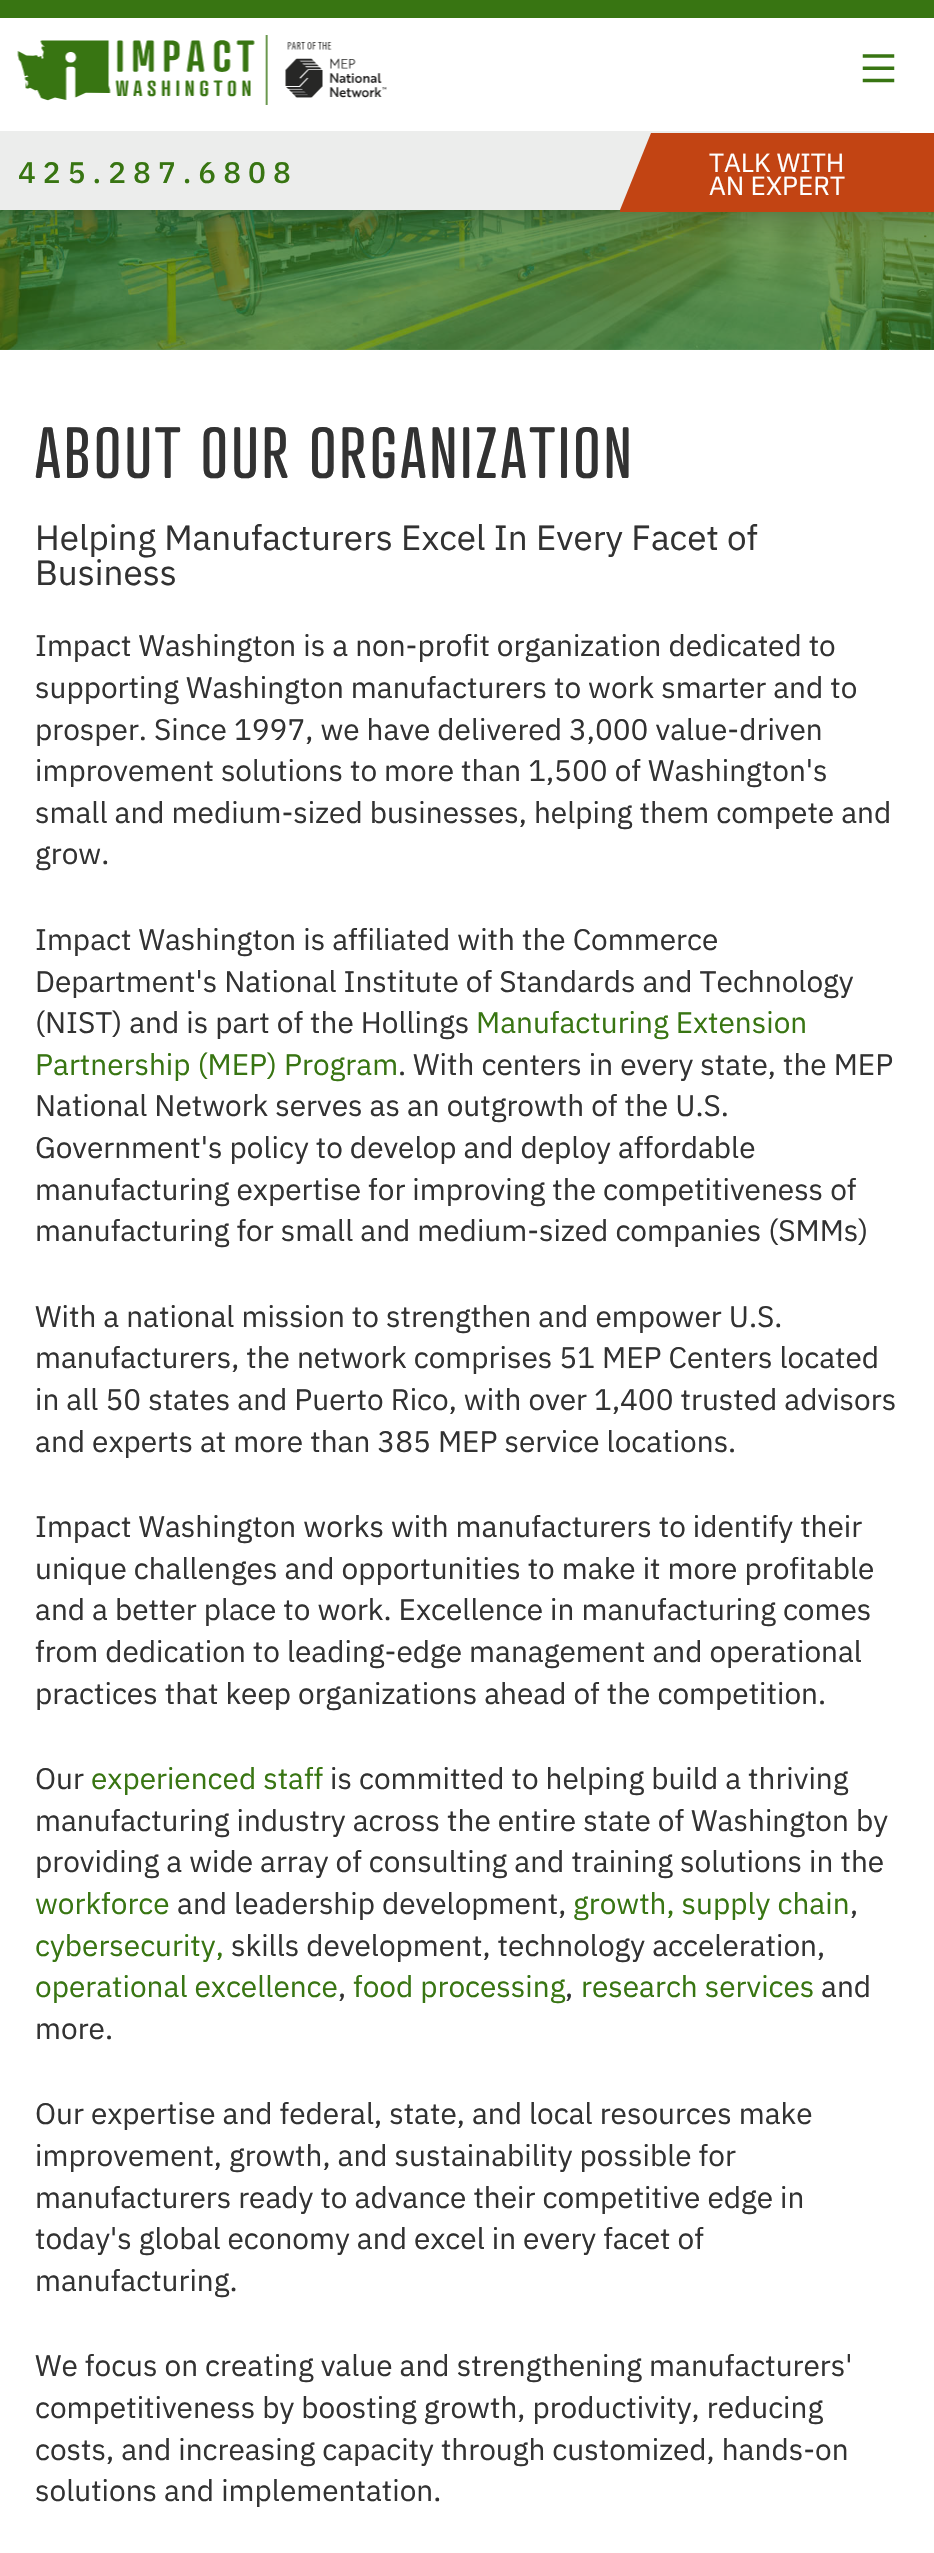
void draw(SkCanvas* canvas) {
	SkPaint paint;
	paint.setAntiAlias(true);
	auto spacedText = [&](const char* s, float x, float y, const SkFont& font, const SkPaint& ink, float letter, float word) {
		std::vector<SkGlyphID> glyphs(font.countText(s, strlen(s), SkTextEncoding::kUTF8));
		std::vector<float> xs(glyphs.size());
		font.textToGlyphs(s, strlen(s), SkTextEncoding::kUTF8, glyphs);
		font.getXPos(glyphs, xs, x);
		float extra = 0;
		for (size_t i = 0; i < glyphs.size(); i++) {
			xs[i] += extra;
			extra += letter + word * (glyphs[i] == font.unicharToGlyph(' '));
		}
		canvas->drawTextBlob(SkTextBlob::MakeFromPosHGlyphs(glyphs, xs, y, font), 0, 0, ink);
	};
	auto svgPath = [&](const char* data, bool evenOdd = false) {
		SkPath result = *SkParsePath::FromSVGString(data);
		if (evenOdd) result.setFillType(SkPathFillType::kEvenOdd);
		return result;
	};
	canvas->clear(0xffffffff);
	canvas->drawImageRect(SkImages::DeferredFromEncodedData(SkData::MakeFromFileName("img3.png")), SkRect::MakeXYWH(0, 210, 934, 140), SkSamplingOptions());
	paint.setColor(0x66000000);
	paint.setMaskFilter(SkMaskFilter::MakeBlur(kNormal_SkBlurStyle, 17.5));
	canvas->drawRect(SkRect::MakeXYWH(0, 0, 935, 210), paint);
	paint.setMaskFilter(nullptr);
	paint.setColor(0xffffffff);
	canvas->drawRect(SkRect::MakeXYWH(0, 18, 934, 115), paint);
	paint.setColor(0xff387512);
	canvas->drawRect(SkRect::MakeXYWH(0, 0, 934, 18), paint);
	canvas->drawImageRect(SkImages::DeferredFromEncodedData(SkData::MakeFromFileName("img1.png")), SkRect::MakeXYWH(17, 35, 370, 70), SkSamplingOptions());
	canvas->drawImageRect(SkImages::DeferredFromEncodedData(SkData::MakeFromFileName("img2.png")), SkRect::MakeXYWH(862, 54, 33, 29), SkSamplingOptions());
	paint.setColor(0xffecedec);
	canvas->drawRect(SkRect::MakeXYWH(0, 131, 900, 79), paint);
	SkFont f1(fontMgr->matchFamilyStyle("IBM Plex Sans", SkFontStyle(500, SkFontStyle::kNormal_Width, SkFontStyle::kUpright_Slant)), 29.75);
	f1.setSubpixel(true);
	paint.setColor(0xff387512);
	spacedText("425.287.6808", 18, 183, f1, paint, 7, 0);
	paint.setColor(0xffc24413);
	canvas->drawPath(svgPath("M651 133L620 210V212H934V133Z"), paint);
	SkFont f2(fontMgr->matchFamilyStyle("IBM Plex Sans", SkFontStyle::Normal()), 26.25);
	f2.setSubpixel(true);
	paint.setColor(0xffffffff);
	canvas->drawString("TALK WITH", 709, 172, f2, paint);
	canvas->drawString("AN EXPERT", 709, 195, f2, paint);
	SkFont f3(fontMgr->matchFamilyStyle("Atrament", SkFontStyle::Normal()), 70);
	f3.setSubpixel(true);
	paint.setColor(0xff323232);
	spacedText("ABOUT OUR ORGANIZATION", 35, 478, f3, paint, 3.5, 0);
	SkFont f4(fontMgr->matchFamilyStyle("IBM Plex Sans", SkFontStyle::Normal()), 35);
	f4.setSubpixel(true);
	canvas->drawString("Helping Manufacturers Excel In Every Facet of", 35, 550, f4, paint);
	canvas->drawString("Business", 35, 585, f4, paint);
	SkFont f5(fontMgr->matchFamilyStyle("IBM Plex Sans", SkFontStyle::Normal()), 29.75);
	f5.setSubpixel(true);
	canvas->drawString("Impact Washington is a non-profit organization dedicated to", 35, 656, f5, paint);
	canvas->drawString("supporting Washington manufacturers to work smarter and to", 35, 698, f5, paint);
	canvas->drawString("prosper. Since 1997, we have delivered 3,000 value-driven", 35, 740, f5, paint);
	canvas->drawString("improvement solutions to more than 1,500 of Washington's", 35, 781, f5, paint);
	canvas->drawString("small and medium-sized businesses, helping them compete and", 35, 823, f5, paint);
	canvas->drawString("grow.", 35, 864, f5, paint);
	canvas->drawString("Impact Washington is affiliated with the Commerce", 35, 950, f5, paint);
	canvas->drawString("Department's National Institute of Standards and Technology", 35, 992, f5, paint);
	canvas->drawString("(NIST) and is part of the Hollings", 35, 1033, f5, paint);
	paint.setColor(0xff387512);
	canvas->drawString("Manufacturing Extension", 476, 1033, f5, paint);
	canvas->drawString("Partnership (MEP) Program", 35, 1075, f5, paint);
	paint.setColor(0xff323232);
	canvas->drawString(". With centers in every state, the MEP", 398, 1075, f5, paint);
	canvas->drawString("National Network serves as an outgrowth of the U.S.", 35, 1116, f5, paint);
	canvas->drawString("Government's policy to develop and deploy affordable", 35, 1158, f5, paint);
	canvas->drawString("manufacturing expertise for improving the competitiveness of", 35, 1200, f5, paint);
	canvas->drawString("manufacturing for small and medium-sized companies (SMMs)", 35, 1241, f5, paint);
	canvas->drawString("With a national mission to strengthen and empower U.S.", 35, 1327, f5, paint);
	canvas->drawString("manufacturers, the network comprises 51 MEP Centers located", 35, 1368, f5, paint);
	canvas->drawString("in all 50 states and Puerto Rico, with over 1,400 trusted advisors", 35, 1410, f5, paint);
	canvas->drawString("and experts at more than 385 MEP service locations.", 35, 1452, f5, paint);
	canvas->drawString("Impact Washington works with manufacturers to identify their", 35, 1537, f5, paint);
	canvas->drawString("unique challenges and opportunities to make it more profitable", 35, 1579, f5, paint);
	canvas->drawString("and a better place to work. Excellence in manufacturing comes", 35, 1620, f5, paint);
	canvas->drawString("from dedication to leading-edge management and operational", 35, 1662, f5, paint);
	canvas->drawString("practices that keep organizations ahead of the competition.", 35, 1704, f5, paint);
	canvas->drawString("Our", 35, 1789, f5, paint);
	paint.setColor(0xff387512);
	canvas->drawString("experienced staff", 91, 1789, f5, paint);
	paint.setColor(0xff323232);
	canvas->drawString("is committed to helping build a thriving", 330, 1789, f5, paint);
	canvas->drawString("manufacturing industry across the entire state of Washington by", 35, 1831, f5, paint);
	canvas->drawString("providing a wide array of consulting and training solutions in the", 35, 1872, f5, paint);
	paint.setColor(0xff387512);
	canvas->drawString("workforce", 35, 1914, f5, paint);
	paint.setColor(0xff323232);
	canvas->drawString("and leadership development,", 177, 1914, f5, paint);
	paint.setColor(0xff387512);
	canvas->drawString("growth, supply chain", 573, 1914, f5, paint);
	paint.setColor(0xff323232);
	canvas->drawString(",", 850, 1914, f5, paint);
	paint.setColor(0xff387512);
	canvas->drawString("cybersecurity,", 35, 1956, f5, paint);
	paint.setColor(0xff323232);
	canvas->drawString("skills development, technology acceleration,", 231, 1956, f5, paint);
	paint.setColor(0xff387512);
	canvas->drawString("operational excellence", 35, 1997, f5, paint);
	paint.setColor(0xff323232);
	canvas->drawString(",", 338, 1997, f5, paint);
	paint.setColor(0xff387512);
	canvas->drawString("food processing", 353, 1997, f5, paint);
	paint.setColor(0xff323232);
	canvas->drawString(",", 565, 1997, f5, paint);
	paint.setColor(0xff387512);
	canvas->drawString("research services", 581, 1997, f5, paint);
	paint.setColor(0xff323232);
	canvas->drawString("and", 821, 1997, f5, paint);
	canvas->drawString("more.", 35, 2039, f5, paint);
	canvas->drawString("Our expertise and federal, state, and local resources make", 35, 2124, f5, paint);
	canvas->drawString("improvement, growth, and sustainability possible for", 35, 2166, f5, paint);
	canvas->drawString("manufacturers ready to advance their competitive edge in", 35, 2208, f5, paint);
	canvas->drawString("today's global economy and excel in every facet of", 35, 2249, f5, paint);
	canvas->drawString("manufacturing.", 35, 2291, f5, paint);
	canvas->drawString("We focus on creating value and strengthening manufacturers'", 35, 2376, f5, paint);
	canvas->drawString("competitiveness by boosting growth, productivity, reducing", 35, 2418, f5, paint);
	canvas->drawString("costs, and increasing capacity through customized, hands-on", 35, 2460, f5, paint);
	canvas->drawString("solutions and implementation.", 35, 2501, f5, paint);
}
